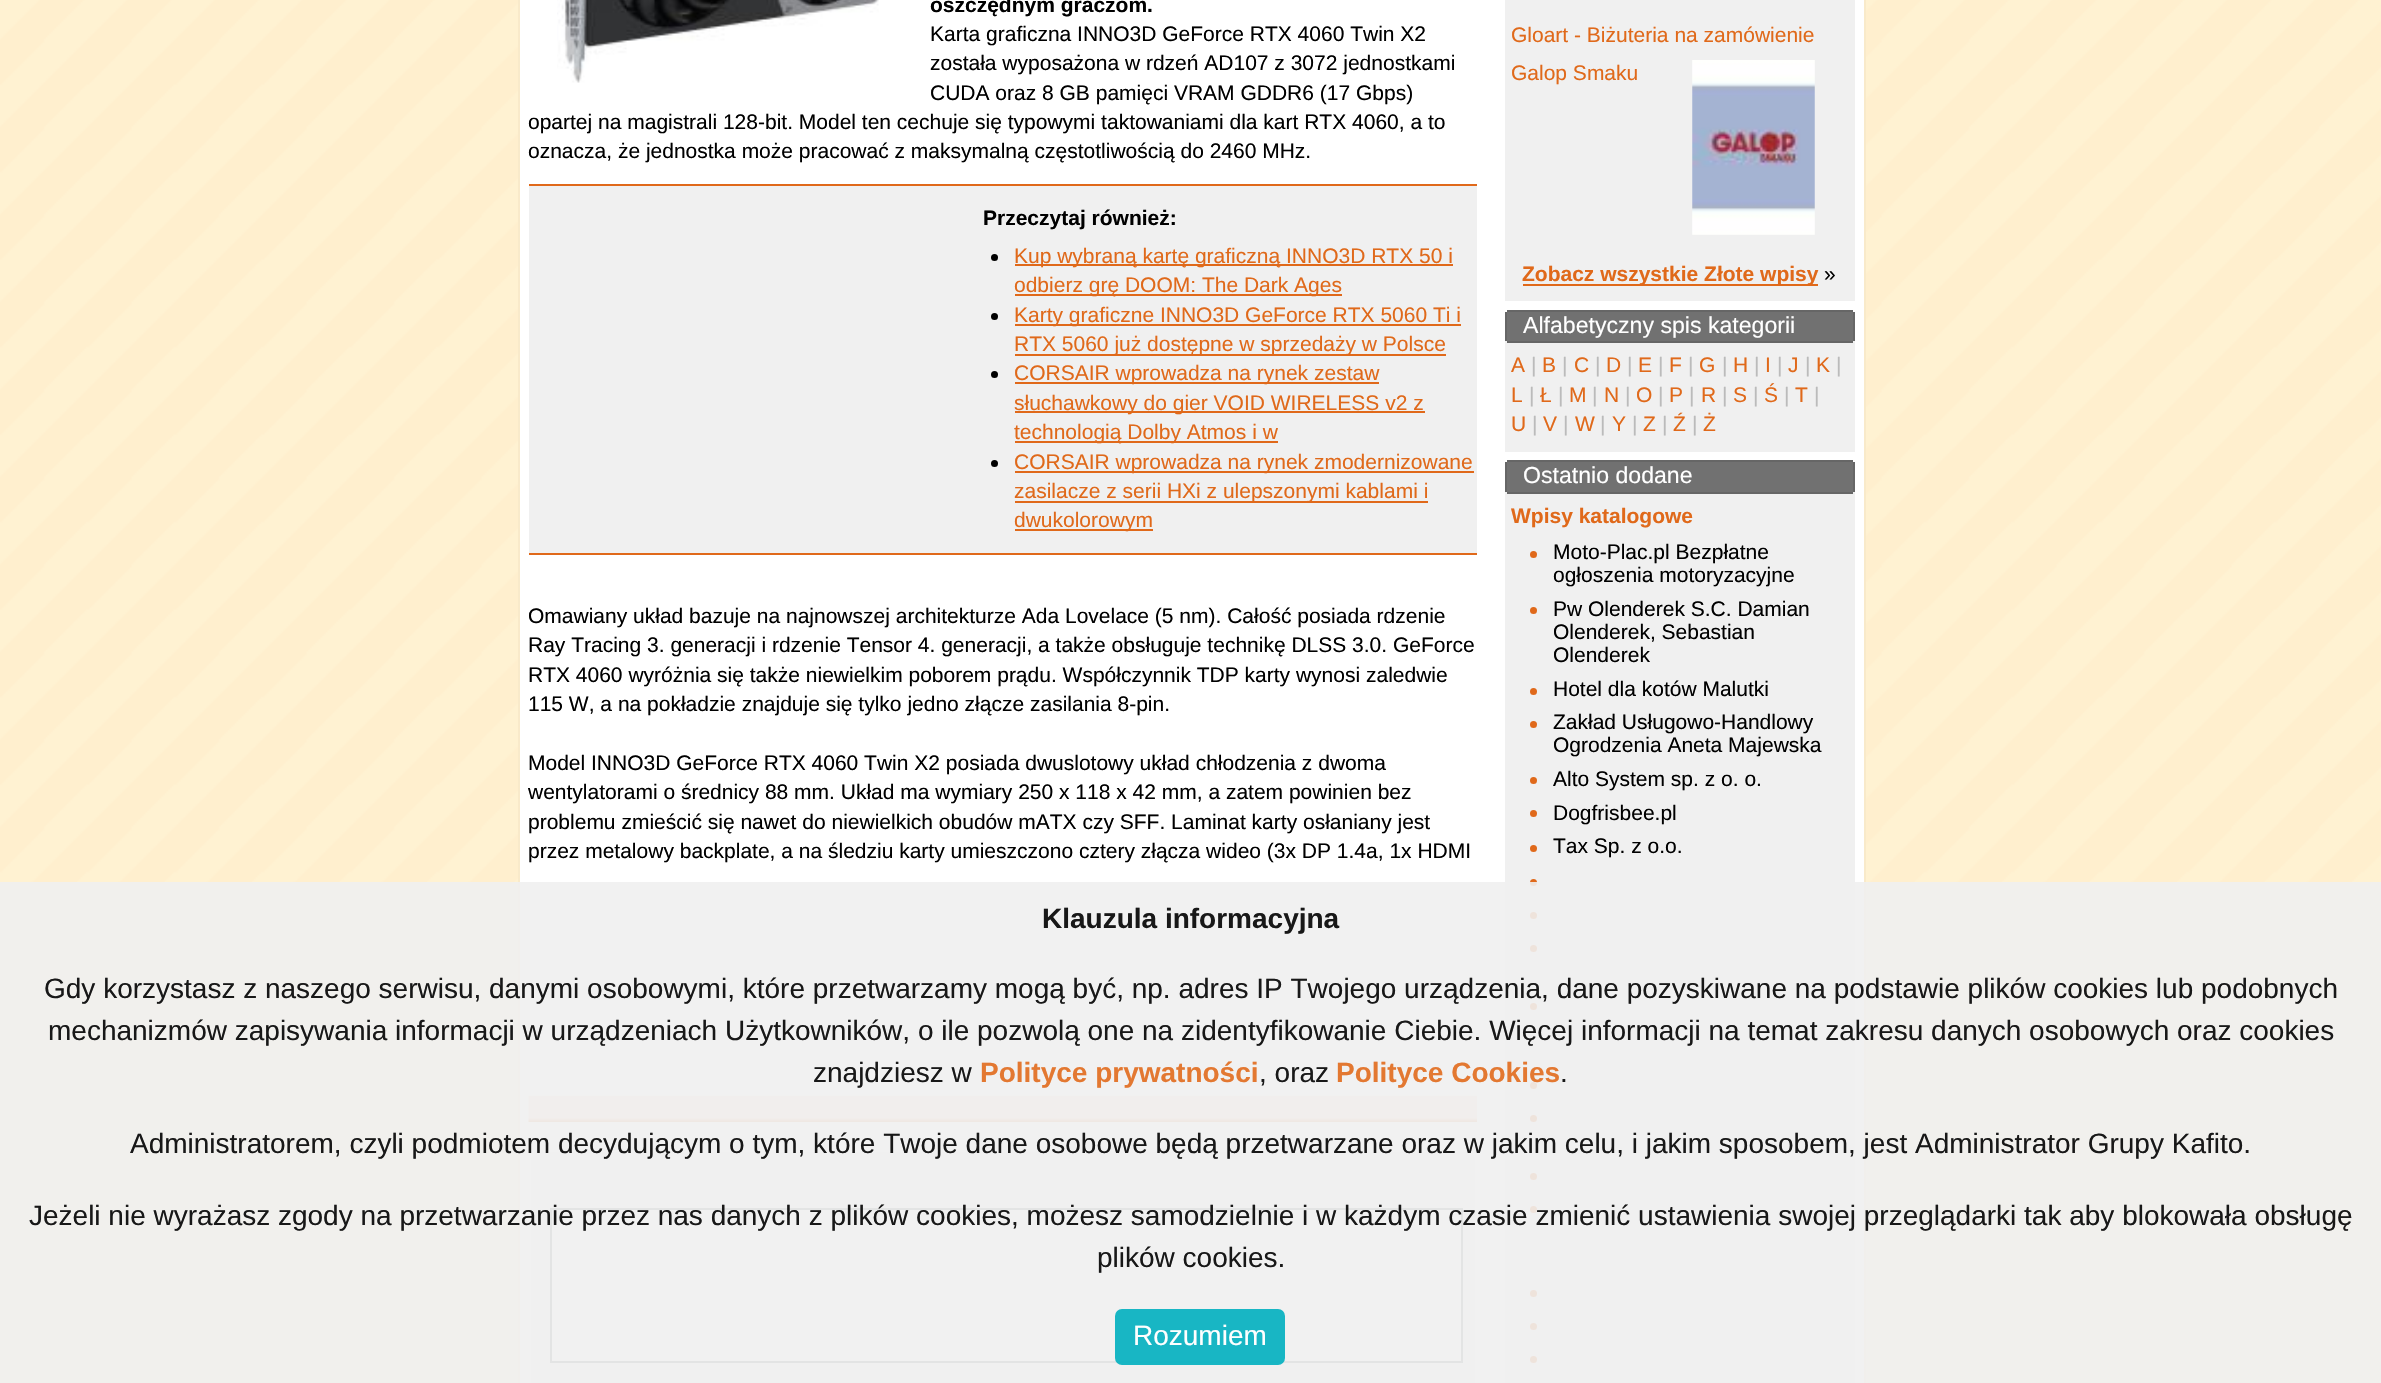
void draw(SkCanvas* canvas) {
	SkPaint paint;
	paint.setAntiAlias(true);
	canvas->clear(0xffffffff);
	canvas->drawImageRect(SkImages::DeferredFromEncodedData(SkData::MakeFromFileName("img1.png")), SkRect::MakeXYWH(0, 0, 2381, 1383), SkSamplingOptions());
	paint.setColor(0xffffffff);
	canvas->drawRect(SkRect::MakeXYWH(520, 0, 1344, 1383), paint);
	paint.setColor(0xfff9eaca);
	canvas->drawRect(SkRect::MakeXYWH(1864, 0, 2, 1383), paint);
	canvas->drawRect(SkRect::MakeXYWH(518, 0, 2, 1383), paint);
	canvas->drawImageRect(SkImages::DeferredFromEncodedData(SkData::MakeFromFileName("img2.png")), SkRect::MakeXYWH(557, 0, 322, 83), SkSamplingOptions());
	SkFont f1(fontMgr->matchFamilyStyle("Liberation Sans", SkFontStyle::Bold()), 21);
	f1.setSubpixel(true);
	paint.setColor(0xff000000);
	canvas->drawString("oszczędnym graczom.", 930, 12, f1, paint);
	SkFont f2(fontMgr->matchFamilyStyle("Liberation Sans", SkFontStyle::Normal()), 21);
	f2.setSubpixel(true);
	canvas->drawString("Karta graficzna INNO3D GeForce RTX 4060 Twin X2", 930, 41, f2, paint);
	canvas->drawString("została wyposażona w rdzeń AD107 z 3072 jednostkami", 930, 70, f2, paint);
	canvas->drawString("CUDA oraz 8 GB pamięci VRAM GDDR6 (17 Gbps)", 930, 100, f2, paint);
	canvas->drawString("opartej na magistrali 128-bit. Model ten cechuje się typowymi taktowaniami dla kart RTX 4060, a to", 528, 129, f2, paint);
	canvas->drawString("oznacza, że jednostka może pracować z maksymalną częstotliwością do 2460 MHz.", 528, 158, f2, paint);
	paint.setColor(0xfff0f0f0);
	canvas->drawRect(SkRect::MakeXYWH(529, 186, 948, 367), paint);
	paint.setColor(0xffe0691a);
	canvas->drawRect(SkRect::MakeXYWH(529, 184, 948, 2), paint);
	canvas->drawRect(SkRect::MakeXYWH(529, 553, 948, 2), paint);
	paint.setColor(0xff000000);
	canvas->drawString("Przeczytaj również:", 983, 225, f1, paint);
	canvas->drawCircle(994.5, 257.5, 3.5, paint);
	paint.setColor(0xffe0691a);
	canvas->drawRect(SkRect::MakeXYWH(1015, 264, 438, 2), paint);
	canvas->drawString("Kup wybraną kartę graficzną INNO3D RTX 50 i", 1014, 263, f2, paint);
	canvas->drawRect(SkRect::MakeXYWH(1015, 294, 327, 2), paint);
	canvas->drawString("odbierz grę DOOM: The Dark Ages", 1014, 292, f2, paint);
	paint.setColor(0xff000000);
	canvas->drawCircle(994.5, 316.5, 3.5, paint);
	paint.setColor(0xffe0691a);
	canvas->drawRect(SkRect::MakeXYWH(1015, 324, 446, 2), paint);
	canvas->drawString("Karty graficzne INNO3D GeForce RTX 5060 Ti i", 1014, 322, f2, paint);
	canvas->drawRect(SkRect::MakeXYWH(1015, 354, 431, 2), paint);
	canvas->drawString("RTX 5060 już dostępne w sprzedaży w Polsce", 1014, 351, f2, paint);
	paint.setColor(0xff000000);
	canvas->drawCircle(994.5, 374.5, 3.5, paint);
	paint.setColor(0xffe0691a);
	canvas->drawRect(SkRect::MakeXYWH(1015, 382, 364, 2), paint);
	canvas->drawString("CORSAIR wprowadza na rynek zestaw", 1014, 380, f2, paint);
	canvas->drawRect(SkRect::MakeXYWH(1015, 411, 410, 2), paint);
	canvas->drawString("słuchawkowy do gier VOID WIRELESS v2 z", 1014, 410, f2, paint);
	canvas->drawRect(SkRect::MakeXYWH(1015, 441, 263, 2), paint);
	canvas->drawString("technologią Dolby Atmos i w", 1014, 439, f2, paint);
	paint.setColor(0xff000000);
	canvas->drawCircle(994.5, 463.5, 3.5, paint);
	paint.setColor(0xffe0691a);
	canvas->drawRect(SkRect::MakeXYWH(1015, 471, 459, 2), paint);
	canvas->drawString("CORSAIR wprowadza na rynek zmodernizowane", 1014, 469, f2, paint);
	canvas->drawRect(SkRect::MakeXYWH(1015, 501, 413, 2), paint);
	canvas->drawString("zasilacze z serii HXi z ulepszonymi kablami i", 1014, 498, f2, paint);
	canvas->drawRect(SkRect::MakeXYWH(1015, 529, 138, 2), paint);
	canvas->drawString("dwukolorowym", 1014, 527, f2, paint);
	paint.setColor(0xff000000);
	canvas->drawString("Omawiany układ bazuje na najnowszej architekturze Ada Lovelace (5 nm). Całość posiada rdzenie", 528, 623, f2, paint);
	canvas->drawString("Ray Tracing 3. generacji i rdzenie Tensor 4. generacji, a także obsługuje technikę DLSS 3.0. GeForce", 528, 652, f2, paint);
	canvas->drawString("RTX 4060 wyróżnia się także niewielkim poborem prądu. Współczynnik TDP karty wynosi zaledwie", 528, 682, f2, paint);
	canvas->drawString("115 W, a na pokładzie znajduje się tylko jedno złącze zasilania 8-pin.", 528, 711, f2, paint);
	canvas->drawString("Model INNO3D GeForce RTX 4060 Twin X2 posiada dwuslotowy układ chłodzenia z dwoma", 528, 770, f2, paint);
	canvas->drawString("wentylatorami o średnicy 88 mm. Układ ma wymiary 250 x 118 x 42 mm, a zatem powinien bez", 528, 799, f2, paint);
	canvas->drawString("problemu zmieścić się nawet do niewielkich obudów mATX czy SFF. Laminat karty osłaniany jest", 528, 829, f2, paint);
	canvas->drawString("przez metalowy backplate, a na śledziu karty umieszczono cztery złącza wideo (3x DP 1.4a, 1x HDMI", 528, 858, f2, paint);
	canvas->drawImageRect(SkImages::DeferredFromEncodedData(SkData::MakeFromFileName("img3.png")), SkRect::MakeXYWH(528, 1095, 949, 27), SkSamplingOptions());
	paint.setColor(0xfff0f0f0);
	canvas->drawRoundRect(SkRect::MakeXYWH(530, 1151, 946, 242), 8, 8, paint);
	paint.setStroke(true);
	paint.setStrokeWidth(2);
	paint.setColor(0xffffffff);
	canvas->drawRoundRect(SkRect::MakeXYWH(530, 1151, 946, 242), 8, 8, paint);
	paint.setStroke(false);
	canvas->drawRect(SkRect::MakeXYWH(551, 1209, 911, 153), paint);
	paint.setStroke(true);
	paint.setColor(0xff6c757a);
	canvas->drawRect(SkRect::MakeXYWH(551, 1209, 911, 153), paint);
	paint.setStroke(false);
	paint.setColor(0xfff0f0f0);
	canvas->drawRect(SkRect::MakeXYWH(1505, 0, 350, 301), paint);
	paint.setColor(0xffe0691a);
	canvas->drawString("Gloart - Biżuteria na zamówienie", 1511, 42, f2, paint);
	canvas->drawString("Galop Smaku", 1511, 80, f2, paint);
	canvas->drawImageRect(SkImages::DeferredFromEncodedData(SkData::MakeFromFileName("img4.png")), SkRect::MakeXYWH(1692, 60, 123, 175), SkSamplingOptions());
	canvas->drawRect(SkRect::MakeXYWH(1523, 284, 295, 2), paint);
	canvas->drawString("Zobacz wszystkie Złote wpisy", 1522, 281, f1, paint);
	paint.setColor(0xff000000);
	canvas->drawString("»", 1824, 281, f2, paint);
	paint.setColor(0xff717171);
	canvas->drawRect(SkRect::MakeXYWH(1507, 312, 346, 29), paint);
	paint.setColor(0xff666666);
	canvas->drawRect(SkRect::MakeXYWH(1853, 312, 2, 29), paint);
	canvas->drawRect(SkRect::MakeXYWH(1505, 312, 2, 29), paint);
	canvas->drawRect(SkRect::MakeXYWH(1507, 310, 346, 2), paint);
	paint.setColor(0xfff0f0f0);
	canvas->drawRect(SkRect::MakeXYWH(1505, 341, 350, 111), paint);
	paint.setColor(0xff666666);
	canvas->drawRect(SkRect::MakeXYWH(1507, 341, 346, 2), paint);
	SkFont f3(fontMgr->matchFamilyStyle("Liberation Sans", SkFontStyle::Normal()), 23.1);
	f3.setSubpixel(true);
	paint.setColor(0xffffffff);
	canvas->drawString("Alfabetyczny spis kategorii", 1523, 333, f3, paint);
	paint.setColor(0xffe0691a);
	canvas->drawString("A", 1511, 372, f2, paint);
	paint.setColor(0xffbbbbbb);
	canvas->drawString("|", 1531, 372, f2, paint);
	paint.setColor(0xffe0691a);
	canvas->drawString("B", 1542, 372, f2, paint);
	paint.setColor(0xffbbbbbb);
	canvas->drawString("|", 1562, 372, f2, paint);
	paint.setColor(0xffe0691a);
	canvas->drawString("C", 1574, 372, f2, paint);
	paint.setColor(0xffbbbbbb);
	canvas->drawString("|", 1595, 372, f2, paint);
	paint.setColor(0xffe0691a);
	canvas->drawString("D", 1606, 372, f2, paint);
	paint.setColor(0xffbbbbbb);
	canvas->drawString("|", 1627, 372, f2, paint);
	paint.setColor(0xffe0691a);
	canvas->drawString("E", 1638, 372, f2, paint);
	paint.setColor(0xffbbbbbb);
	canvas->drawString("|", 1658, 372, f2, paint);
	paint.setColor(0xffe0691a);
	canvas->drawString("F", 1669, 372, f2, paint);
	paint.setColor(0xffbbbbbb);
	canvas->drawString("|", 1688, 372, f2, paint);
	paint.setColor(0xffe0691a);
	canvas->drawString("G", 1699, 372, f2, paint);
	paint.setColor(0xffbbbbbb);
	canvas->drawString("|", 1722, 372, f2, paint);
	paint.setColor(0xffe0691a);
	canvas->drawString("H", 1733, 372, f2, paint);
	paint.setColor(0xffbbbbbb);
	canvas->drawString("|", 1754, 372, f2, paint);
	paint.setColor(0xffe0691a);
	canvas->drawString("I", 1765, 372, f2, paint);
	paint.setColor(0xffbbbbbb);
	canvas->drawString("|", 1777, 372, f2, paint);
	paint.setColor(0xffe0691a);
	canvas->drawString("J", 1788, 372, f2, paint);
	paint.setColor(0xffbbbbbb);
	canvas->drawString("|", 1805, 372, f2, paint);
	paint.setColor(0xffe0691a);
	canvas->drawString("K", 1816, 372, f2, paint);
	paint.setColor(0xffbbbbbb);
	canvas->drawString("|", 1836, 372, f2, paint);
	paint.setColor(0xffe0691a);
	canvas->drawString("L", 1511, 402, f2, paint);
	paint.setColor(0xffbbbbbb);
	canvas->drawString("|", 1529, 402, f2, paint);
	paint.setColor(0xffe0691a);
	canvas->drawString("Ł", 1540, 402, f2, paint);
	paint.setColor(0xffbbbbbb);
	canvas->drawString("|", 1558, 402, f2, paint);
	paint.setColor(0xffe0691a);
	canvas->drawString("M", 1569, 402, f2, paint);
	paint.setColor(0xffbbbbbb);
	canvas->drawString("|", 1592, 402, f2, paint);
	paint.setColor(0xffe0691a);
	canvas->drawString("N", 1604, 402, f2, paint);
	paint.setColor(0xffbbbbbb);
	canvas->drawString("|", 1625, 402, f2, paint);
	paint.setColor(0xffe0691a);
	canvas->drawString("O", 1636, 402, f2, paint);
	paint.setColor(0xffbbbbbb);
	canvas->drawString("|", 1658, 402, f2, paint);
	paint.setColor(0xffe0691a);
	canvas->drawString("P", 1669, 402, f2, paint);
	paint.setColor(0xffbbbbbb);
	canvas->drawString("|", 1689, 402, f2, paint);
	paint.setColor(0xffe0691a);
	canvas->drawString("R", 1701, 402, f2, paint);
	paint.setColor(0xffbbbbbb);
	canvas->drawString("|", 1722, 402, f2, paint);
	paint.setColor(0xffe0691a);
	canvas->drawString("S", 1733, 402, f2, paint);
	paint.setColor(0xffbbbbbb);
	canvas->drawString("|", 1753, 402, f2, paint);
	paint.setColor(0xffe0691a);
	canvas->drawString("Ś", 1764, 402, f2, paint);
	paint.setColor(0xffbbbbbb);
	canvas->drawString("|", 1784, 402, f2, paint);
	paint.setColor(0xffe0691a);
	canvas->drawString("T", 1795, 402, f2, paint);
	paint.setColor(0xffbbbbbb);
	canvas->drawString("|", 1814, 402, f2, paint);
	paint.setColor(0xffe0691a);
	canvas->drawString("U", 1511, 431, f2, paint);
	paint.setColor(0xffbbbbbb);
	canvas->drawString("|", 1532, 431, f2, paint);
	paint.setColor(0xffe0691a);
	canvas->drawString("V", 1543, 431, f2, paint);
	paint.setColor(0xffbbbbbb);
	canvas->drawString("|", 1563, 431, f2, paint);
	paint.setColor(0xffe0691a);
	canvas->drawString("W", 1575, 431, f2, paint);
	paint.setColor(0xffbbbbbb);
	canvas->drawString("|", 1600, 431, f2, paint);
	paint.setColor(0xffe0691a);
	canvas->drawString("Y", 1612, 431, f2, paint);
	paint.setColor(0xffbbbbbb);
	canvas->drawString("|", 1632, 431, f2, paint);
	paint.setColor(0xffe0691a);
	canvas->drawString("Z", 1643, 431, f2, paint);
	paint.setColor(0xffbbbbbb);
	canvas->drawString("|", 1662, 431, f2, paint);
	paint.setColor(0xffe0691a);
	canvas->drawString("Ź", 1673, 431, f2, paint);
	paint.setColor(0xffbbbbbb);
	canvas->drawString("|", 1692, 431, f2, paint);
	paint.setColor(0xffe0691a);
	canvas->drawString("Ż", 1703, 431, f2, paint);
	paint.setColor(0xff717171);
	canvas->drawRect(SkRect::MakeXYWH(1507, 462, 346, 30), paint);
	paint.setColor(0xff666666);
	canvas->drawRect(SkRect::MakeXYWH(1853, 462, 2, 30), paint);
	canvas->drawRect(SkRect::MakeXYWH(1505, 462, 2, 30), paint);
	canvas->drawRect(SkRect::MakeXYWH(1507, 460, 346, 2), paint);
	paint.setColor(0xfff0f0f0);
	canvas->drawRect(SkRect::MakeXYWH(1505, 492, 350, 891), paint);
	paint.setColor(0xff666666);
	canvas->drawRect(SkRect::MakeXYWH(1507, 492, 346, 2), paint);
	paint.setColor(0xffffffff);
	canvas->drawString("Ostatnio dodane", 1523, 483, f3, paint);
	paint.setColor(0xffe0691a);
	canvas->drawString("Wpisy katalogowe", 1511, 523, f1, paint);
	canvas->drawCircle(1533.5, 554.5, 3.5, paint);
	paint.setColor(0xff000000);
	canvas->drawString("Moto-Plac.pl Bezpłatne", 1553, 559, f2, paint);
	canvas->drawString("ogłoszenia motoryzacyjne", 1553, 582, f2, paint);
	paint.setColor(0xffe0691a);
	canvas->drawCircle(1533.5, 610.5, 3.5, paint);
	paint.setColor(0xff000000);
	canvas->drawString("Pw Olenderek S.C. Damian", 1553, 616, f2, paint);
	canvas->drawString("Olenderek, Sebastian", 1553, 639, f2, paint);
	canvas->drawString("Olenderek", 1553, 662, f2, paint);
	paint.setColor(0xffe0691a);
	canvas->drawCircle(1533.5, 691.5, 3.5, paint);
	paint.setColor(0xff000000);
	canvas->drawString("Hotel dla kotów Malutki", 1553, 696, f2, paint);
	paint.setColor(0xffe0691a);
	canvas->drawCircle(1533.5, 724.5, 3.5, paint);
	paint.setColor(0xff000000);
	canvas->drawString("Zakład Usługowo-Handlowy", 1553, 729, f2, paint);
	canvas->drawString("Ogrodzenia Aneta Majewska", 1553, 752, f2, paint);
	paint.setColor(0xffe0691a);
	canvas->drawCircle(1533.5, 780.5, 3.5, paint);
	paint.setColor(0xff000000);
	canvas->drawString("Alto System sp. z o. o.", 1553, 786, f2, paint);
	paint.setColor(0xffe0691a);
	canvas->drawCircle(1533.5, 813.5, 3.5, paint);
	paint.setColor(0xff000000);
	canvas->drawString("Dogfrisbee.pl", 1553, 820, f2, paint);
	paint.setColor(0xffe0691a);
	canvas->drawCircle(1533.5, 848.5, 3.5, paint);
	paint.setColor(0xff000000);
	canvas->drawString("Tax Sp. z o.o.", 1553, 853, f2, paint);
	paint.setColor(0xffe0691a);
	canvas->drawCircle(1533.5, 882.5, 3.5, paint);
	canvas->drawCircle(1533.5, 915.5, 3.5, paint);
	canvas->drawCircle(1533.5, 948.5, 3.5, paint);
	canvas->drawCircle(1533.5, 1006.5, 3.5, paint);
	canvas->drawCircle(1533.5, 1085.5, 3.5, paint);
	canvas->drawCircle(1533.5, 1118.5, 3.5, paint);
	canvas->drawCircle(1533.5, 1176.5, 3.5, paint);
	canvas->drawCircle(1533.5, 1209.5, 3.5, paint);
	canvas->drawCircle(1533.5, 1293.5, 3.5, paint);
	canvas->drawCircle(1533.5, 1326.5, 3.5, paint);
	canvas->drawCircle(1533.5, 1359.5, 3.5, paint);
	paint.setColor(0xe6efefef);
	canvas->drawRect(SkRect::MakeXYWH(0, 882, 2381, 501), paint);
	SkFont f4(fontMgr->matchFamilyStyle("Liberation Sans", SkFontStyle::Bold()), 28);
	f4.setSubpixel(true);
	paint.setColor(0xff181818);
	canvas->drawString("Klauzula informacyjna", 1042, 928, f4, paint);
	SkFont f5(fontMgr->matchFamilyStyle("Liberation Sans", SkFontStyle::Normal()), 28);
	f5.setSubpixel(true);
	canvas->drawString("Gdy korzystasz z naszego serwisu, danymi osobowymi, które przetwarzamy mogą być, np. adres IP Twojego urządzenia, dane pozyskiwane na podstawie plików cookies lub podobnych", 44, 998, f5, paint);
	canvas->drawString("mechanizmów zapisywania informacji w urządzeniach Użytkowników, o ile pozwolą one na zidentyfikowanie Ciebie. Więcej informacji na temat zakresu danych osobowych oraz cookies", 48, 1040, f5, paint);
	canvas->drawString("znajdziesz w", 813, 1082, f5, paint);
	paint.setColor(0xffe37831);
	canvas->drawString("Polityce prywatności", 980, 1082, f4, paint);
	paint.setColor(0xff181818);
	canvas->drawString(", oraz", 1259, 1082, f5, paint);
	paint.setColor(0xffe37831);
	canvas->drawString("Polityce Cookies", 1336, 1082, f4, paint);
	paint.setColor(0xff181818);
	canvas->drawString(".", 1560, 1082, f5, paint);
	canvas->drawString("Administratorem, czyli podmiotem decydującym o tym, które Twoje dane osobowe będą przetwarzane oraz w jakim celu, i jakim sposobem, jest Administrator Grupy Kafito.", 130, 1153, f5, paint);
	canvas->drawString("Jeżeli nie wyrażasz zgody na przetwarzanie przez nas danych z plików cookies, możesz samodzielnie i w każdym czasie zmienić ustawienia swojej przeglądarki tak aby blokowała obsługę", 29, 1225, f5, paint);
	canvas->drawString("plików cookies.", 1097, 1267, f5, paint);
	paint.setColor(0xe600afbf);
	canvas->drawRoundRect(SkRect::MakeXYWH(1115, 1309, 170, 56), 7, 7, paint);
	paint.setColor(0xffffffff);
	canvas->drawString("Rozumiem", 1133, 1345, f5, paint);
}
